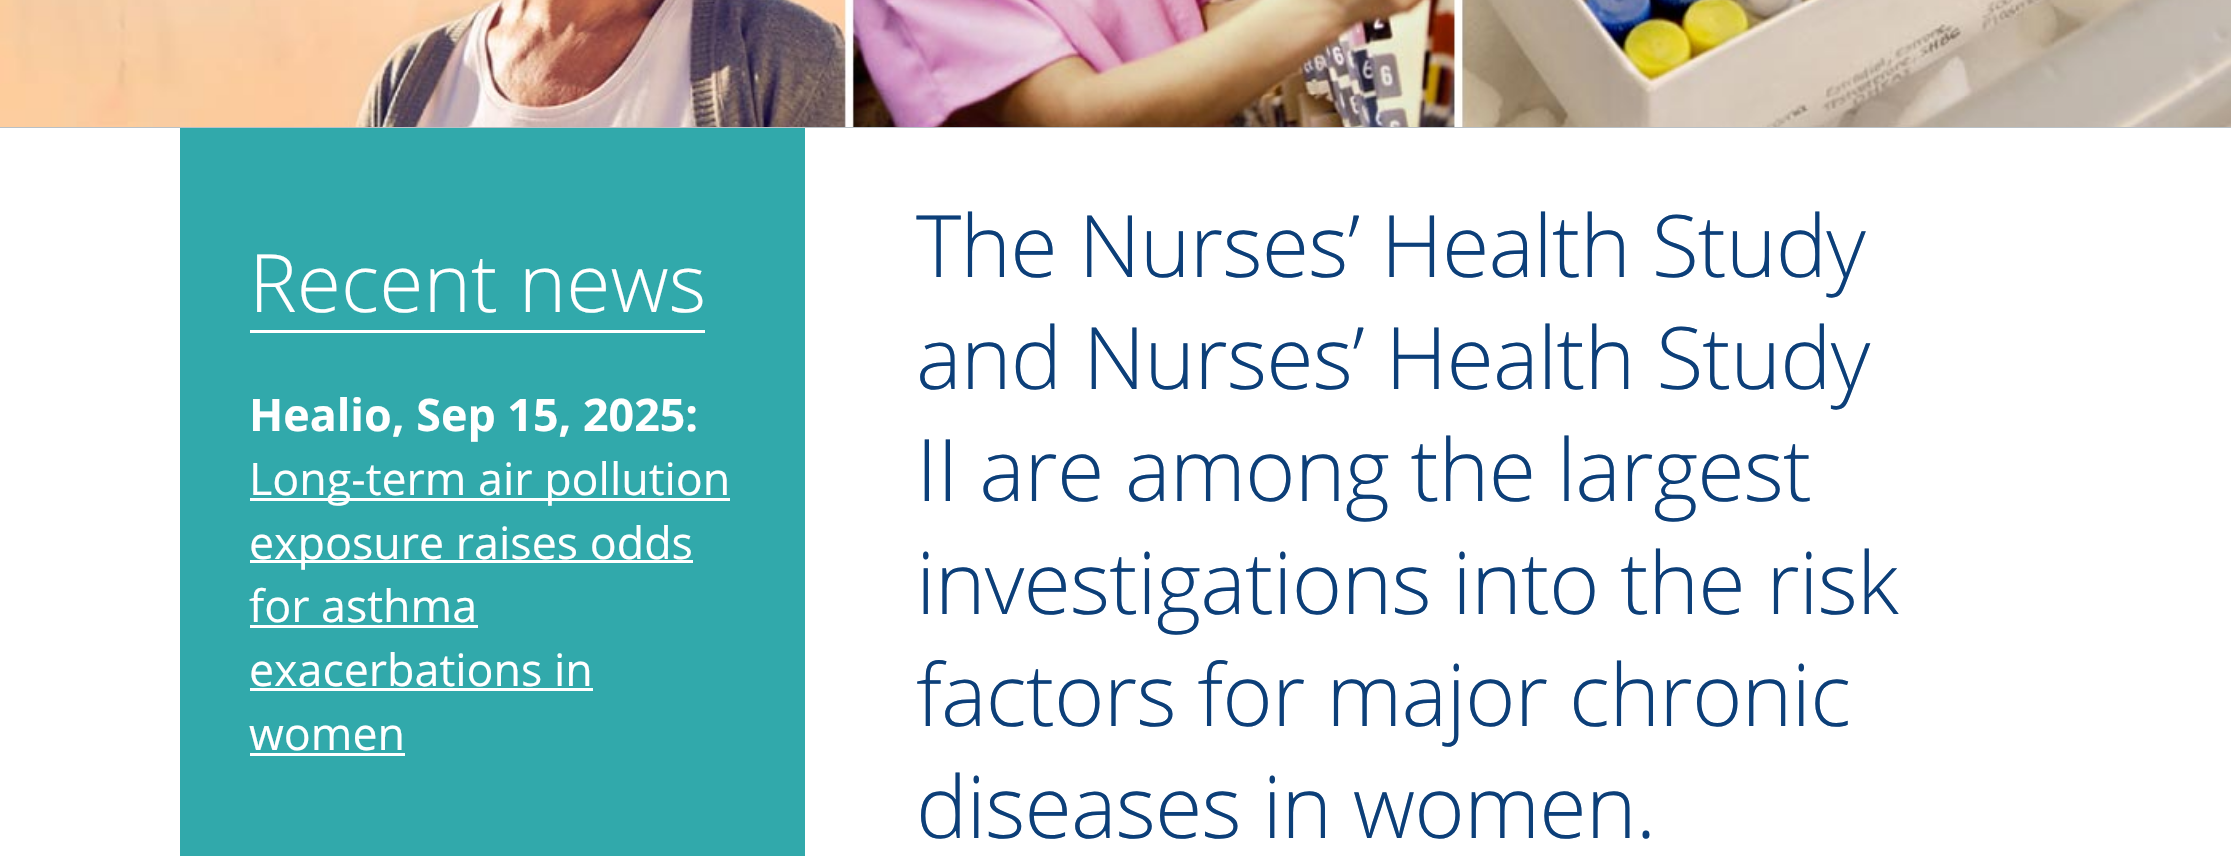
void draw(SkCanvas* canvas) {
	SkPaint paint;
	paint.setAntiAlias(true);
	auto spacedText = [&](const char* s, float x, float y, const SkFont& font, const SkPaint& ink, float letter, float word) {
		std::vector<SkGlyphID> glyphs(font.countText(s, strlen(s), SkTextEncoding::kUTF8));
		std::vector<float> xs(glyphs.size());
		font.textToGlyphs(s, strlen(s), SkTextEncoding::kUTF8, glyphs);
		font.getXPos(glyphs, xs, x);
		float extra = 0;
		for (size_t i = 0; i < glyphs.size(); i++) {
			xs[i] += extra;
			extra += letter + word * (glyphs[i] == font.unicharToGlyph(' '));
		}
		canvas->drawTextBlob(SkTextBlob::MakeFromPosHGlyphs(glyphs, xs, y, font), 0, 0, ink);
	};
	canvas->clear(0xffb9c1c7);
	canvas->drawImageRect(SkImages::DeferredFromEncodedData(SkData::MakeFromFileName("img1.png")), SkRect::MakeXYWH(0, 0, 2231, 127), SkSamplingOptions());
	paint.setColor(0xffffffff);
	canvas->drawRect(SkRect::MakeXYWH(0, 128, 2231, 728), paint);
	paint.setColor(0xff31a9ab);
	canvas->drawRect(SkRect::MakeXYWH(180, 128, 625, 728), paint);
	paint.setColor(0xffffffff);
	canvas->drawRect(SkRect::MakeXYWH(250, 330, 455, 3), paint);
	SkFont f1(fontMgr->matchFamilyStyle("Open Sans", SkFontStyle(300, SkFontStyle::kNormal_Width, SkFontStyle::kUpright_Slant)), 80.5);
	f1.setSubpixel(true);
	canvas->drawString("Recent news", 249, 312, f1, paint);
	SkFont f2(fontMgr->matchFamilyStyle("Open Sans", SkFontStyle::Bold()), 44.75);
	f2.setSubpixel(true);
	canvas->drawString("Healio, Sep 15, 2025:", 249, 431, f2, paint);
	canvas->drawRect(SkRect::MakeXYWH(250, 498, 480, 3), paint);
	SkFont f3(fontMgr->matchFamilyStyle("Open Sans", SkFontStyle::Normal()), 44.75);
	f3.setSubpixel(true);
	canvas->drawString("Long-term air pollution", 249, 495, f3, paint);
	canvas->drawRect(SkRect::MakeXYWH(250, 560, 443, 3), paint);
	canvas->drawString("exposure raises odds", 249, 559, f3, paint);
	canvas->drawString("for asthma", 249, 622, f3, paint);
	canvas->drawRect(SkRect::MakeXYWH(250, 625, 228, 3), paint);
	canvas->drawString("exacerbations in", 249, 686, f3, paint);
	canvas->drawRect(SkRect::MakeXYWH(250, 688, 343, 3), paint);
	canvas->drawString("women", 249, 750, f3, paint);
	canvas->drawRect(SkRect::MakeXYWH(250, 753, 155, 3), paint);
	SkFont f4(fontMgr->matchFamilyStyle("Open Sans", SkFontStyle(300, SkFontStyle::kNormal_Width, SkFontStyle::kUpright_Slant)), 86.25);
	f4.setSubpixel(true);
	paint.setColor(0xff0c3f79);
	spacedText("The Nurses’ Health Study", 916, 277, f4, paint, -0.85, 0);
	spacedText("and Nurses’ Health Study", 916, 389, f4, paint, -0.85, 0);
	spacedText("II are among the largest", 916, 501, f4, paint, -0.85, 0);
	spacedText("investigations into the risk", 916, 614, f4, paint, -0.85, 0);
	spacedText("factors for major chronic", 916, 726, f4, paint, -0.85, 0);
	spacedText("diseases in women.", 916, 838, f4, paint, -0.85, 0);
}
